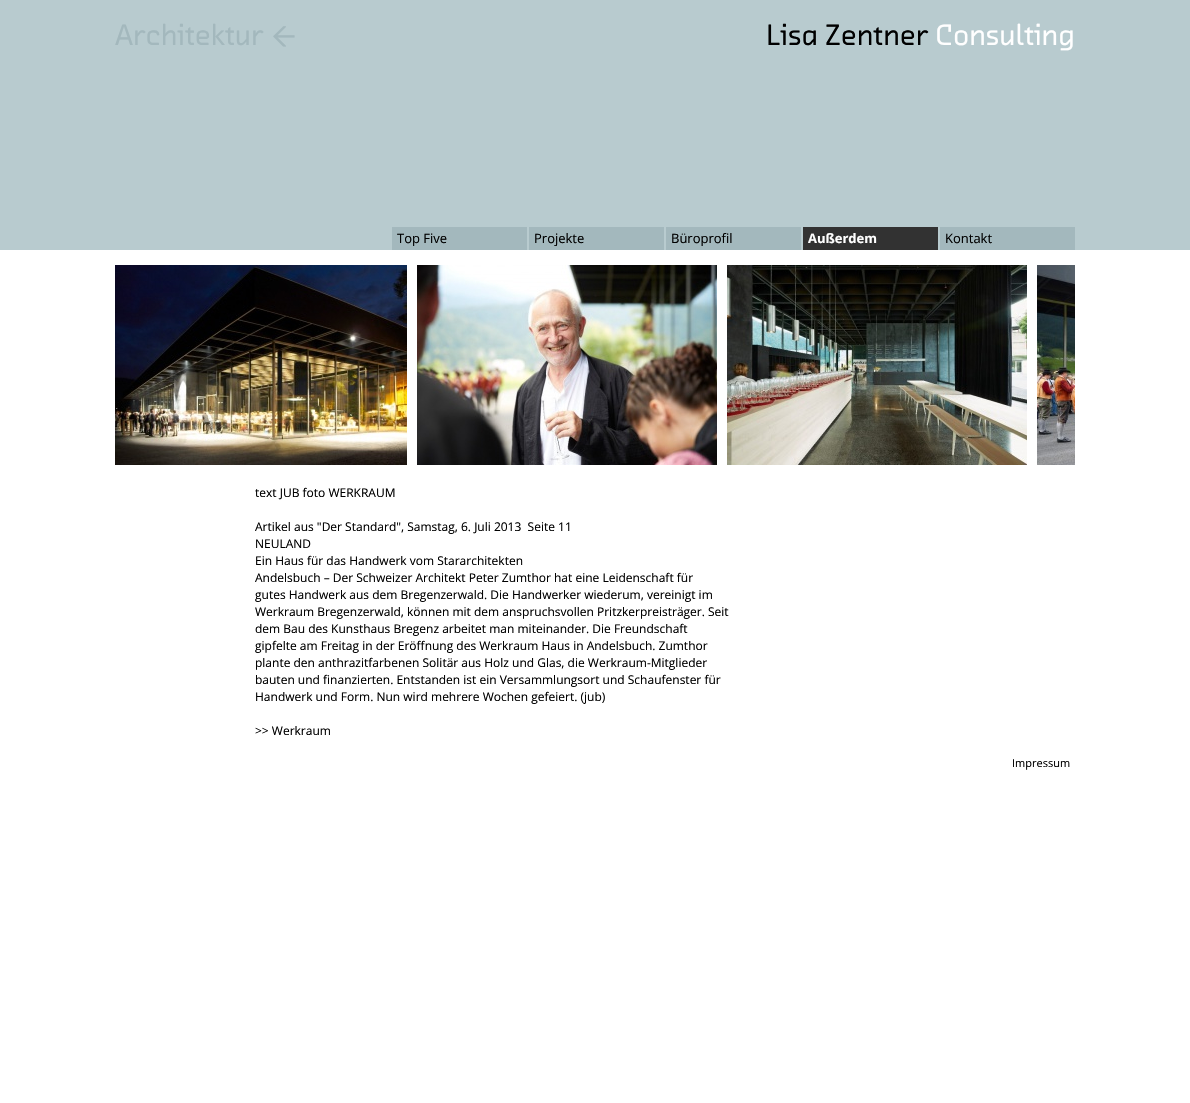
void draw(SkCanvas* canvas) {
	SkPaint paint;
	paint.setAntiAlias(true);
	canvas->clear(0xffffffff);
	paint.setColor(0xffb8cbcf);
	canvas->drawRect(SkRect::MakeXYWH(0, 0, 1190, 250), paint);
	SkFont f1(fontMgr->matchFamilyStyle("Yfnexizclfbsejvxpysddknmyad", SkFontStyle(500, SkFontStyle::kNormal_Width, SkFontStyle::kUpright_Slant)), 30);
	f1.setSubpixel(true);
	paint.setColor(0xffa3b8bd);
	canvas->drawString("Architektur ←", 115, 45, f1, paint);
	paint.setColor(0xff000000);
	canvas->drawString("Lisa Zentner", 766, 45, f1, paint);
	paint.setColor(0xffffffff);
	canvas->drawString("Consulting", 935, 45, f1, paint);
	paint.setColor(0xffa3b8bd);
	canvas->drawRect(SkRect::MakeXYWH(392, 227, 135, 23), paint);
	SkFont f2(fontMgr->matchFamilyStyle("Open Sans", SkFontStyle::Normal()), 13);
	f2.setSubpixel(true);
	paint.setColor(0xff000000);
	canvas->drawString("Top Five", 397, 243, f2, paint);
	paint.setColor(0xffa3b8bd);
	canvas->drawRect(SkRect::MakeXYWH(529, 227, 135, 23), paint);
	paint.setColor(0xff000000);
	canvas->drawString("Projekte", 534, 243, f2, paint);
	paint.setColor(0xffa3b8bd);
	canvas->drawRect(SkRect::MakeXYWH(666, 227, 135, 23), paint);
	paint.setColor(0xff000000);
	canvas->drawString("Büroprofil", 671, 243, f2, paint);
	paint.setColor(0xff323232);
	canvas->drawRect(SkRect::MakeXYWH(803, 227, 135, 23), paint);
	SkFont f3(fontMgr->matchFamilyStyle("Open Sans", SkFontStyle::Bold()), 13);
	f3.setSubpixel(true);
	paint.setColor(0xffffffff);
	canvas->drawString("Außerdem", 808, 243, f3, paint);
	paint.setColor(0xffa3b8bd);
	canvas->drawRect(SkRect::MakeXYWH(940, 227, 135, 23), paint);
	paint.setColor(0xff000000);
	canvas->drawString("Kontakt", 945, 243, f2, paint);
	canvas->drawImageRect(SkImages::DeferredFromEncodedData(SkData::MakeFromFileName("img1.png")), SkRect::MakeXYWH(115, 265, 292, 200), SkSamplingOptions());
	canvas->drawImageRect(SkImages::DeferredFromEncodedData(SkData::MakeFromFileName("img2.png")), SkRect::MakeXYWH(417, 265, 300, 200), SkSamplingOptions());
	canvas->drawImageRect(SkImages::DeferredFromEncodedData(SkData::MakeFromFileName("img3.png")), SkRect::MakeXYWH(727, 265, 300, 200), SkSamplingOptions());
	canvas->drawImageRect(SkImages::DeferredFromEncodedData(SkData::MakeFromFileName("img4.png")), SkRect::MakeXYWH(1037, 265, 38, 200), SkSamplingOptions());
	SkFont f4(fontMgr->matchFamilyStyle("Open Sans", SkFontStyle::Normal()), 12);
	f4.setSubpixel(true);
	canvas->drawString("text JUB foto WERKRAUM", 255, 497, f4, paint);
	canvas->drawString("Artikel aus \"Der Standard\", Samstag, 6. Juli 2013  Seite 11", 255, 531, f4, paint);
	canvas->drawString("NEULAND", 255, 548, f4, paint);
	canvas->drawString("Ein Haus für das Handwerk vom Stararchitekten", 255, 565, f4, paint);
	canvas->drawString("Andelsbuch – Der Schweizer Architekt Peter Zumthor hat eine Leidenschaft für", 255, 582, f4, paint);
	canvas->drawString("gutes Handwerk aus dem Bregenzerwald. Die Handwerker wiederum, vereinigt im", 255, 599, f4, paint);
	canvas->drawString("Werkraum Bregenzerwald, können mit dem anspruchsvollen Pritzkerpreisträger. Seit", 255, 616, f4, paint);
	canvas->drawString("dem Bau des Kunsthaus Bregenz arbeitet man miteinander. Die Freundschaft", 255, 633, f4, paint);
	canvas->drawString("gipfelte am Freitag in der Eröffnung des Werkraum Haus in Andelsbuch. Zumthor", 255, 650, f4, paint);
	canvas->drawString("plante den anthrazitfarbenen Solitär aus Holz und Glas, die Werkraum-Mitglieder", 255, 667, f4, paint);
	canvas->drawString("bauten und finanzierten. Entstanden ist ein Versammlungsort und Schaufenster für", 255, 684, f4, paint);
	canvas->drawString("Handwerk und Form. Nun wird mehrere Wochen gefeiert. (jub)", 255, 701, f4, paint);
	canvas->drawString(">> Werkraum", 255, 735, f4, paint);
	SkFont f5(fontMgr->matchFamilyStyle("Open Sans", SkFontStyle::Normal()), 11);
	f5.setSubpixel(true);
	canvas->drawString("Impressum", 1012, 767, f5, paint);
}
